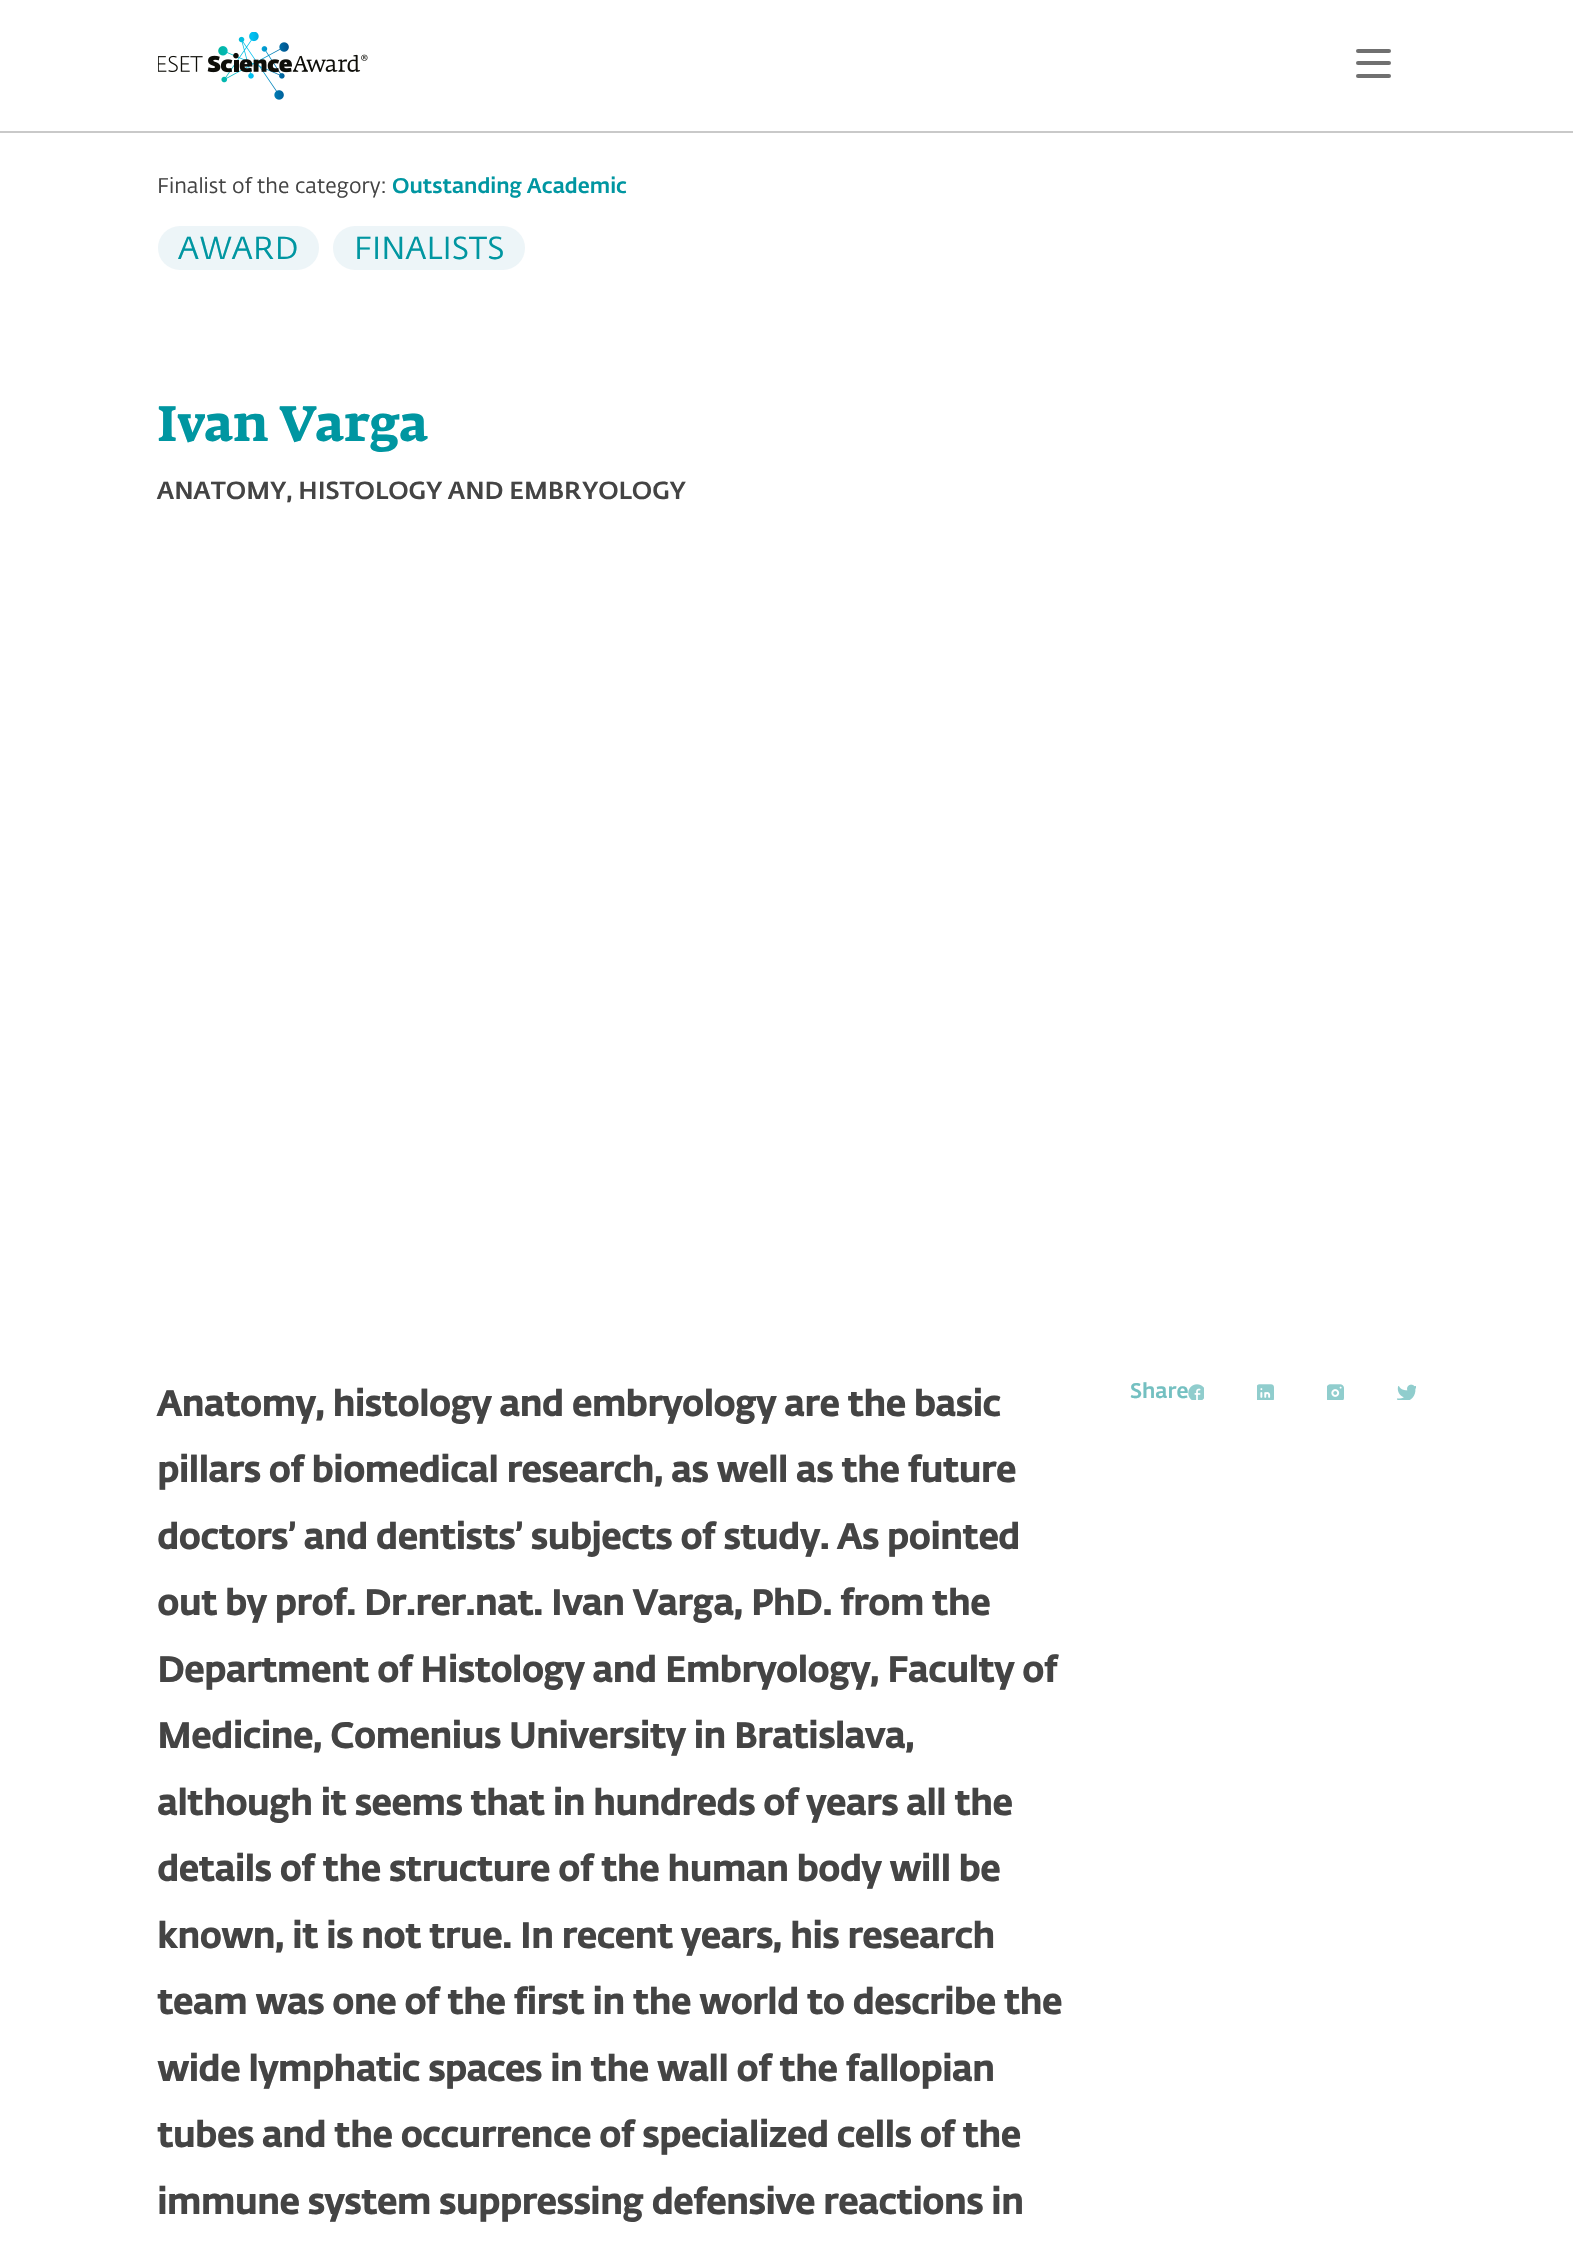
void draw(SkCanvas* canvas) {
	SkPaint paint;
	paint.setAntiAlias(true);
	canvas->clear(0xffffffff);
	paint.setColor(0xffc9c9c9);
	canvas->drawRect(SkRect::MakeXYWH(0, 131, 1573, 2), paint);
	canvas->drawImageRect(SkImages::DeferredFromEncodedData(SkData::MakeFromFileName("img1.png")), SkRect::MakeXYWH(158, 32, 210, 68), SkSamplingOptions());
	paint.setColor(0xff707070);
	canvas->drawRoundRect(SkRect::MakeXYWH(1356, 49, 35, 4), 2, 2, paint);
	canvas->drawRoundRect(SkRect::MakeXYWH(1356, 61, 35, 4), 2, 2, paint);
	canvas->drawRoundRect(SkRect::MakeXYWH(1356, 74, 35, 4), 2, 2, paint);
	SkFont f1(fontMgr->matchFamilyStyle("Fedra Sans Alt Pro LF", SkFontStyle::Normal()), 21);
	f1.setSubpixel(true);
	paint.setColor(0xff444444);
	canvas->drawString("Finalist of the category:", 157, 193, f1, paint);
	SkFont f2(fontMgr->matchFamilyStyle("Fedra Sans Alt Pro LF", SkFontStyle(500, SkFontStyle::kNormal_Width, SkFontStyle::kUpright_Slant)), 21);
	f2.setSubpixel(true);
	paint.setColor(0xff0096a1);
	canvas->drawString("Outstanding Academic", 392, 193, f2, paint);
	paint.setColor(0xffedf5f8);
	canvas->drawRoundRect(SkRect::MakeXYWH(158, 226, 161, 44), 22, 22, paint);
	SkFont f3(fontMgr->matchFamilyStyle("Fedra Sans Alt Pro LF", SkFontStyle::Normal()), 31.5);
	f3.setSubpixel(true);
	paint.setColor(0xff0096a1);
	canvas->drawString("AWARD", 178, 259, f3, paint);
	paint.setColor(0xffedf5f8);
	canvas->drawRoundRect(SkRect::MakeXYWH(333, 226, 192, 44), 22, 22, paint);
	paint.setColor(0xff0096a1);
	canvas->drawString("FINALISTS", 354, 259, f3, paint);
	SkFont f4(fontMgr->matchFamilyStyle("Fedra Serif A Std", SkFontStyle::Bold()), 49);
	f4.setSubpixel(true);
	canvas->drawString("Ivan Varga", 157, 441, f4, paint);
	SkFont f5(fontMgr->matchFamilyStyle("Fedra Sans Alt Pro LF", SkFontStyle(500, SkFontStyle::kNormal_Width, SkFontStyle::kUpright_Slant)), 24.5);
	f5.setSubpixel(true);
	paint.setColor(0xff444444);
	canvas->drawString("ANATOMY, HISTOLOGY AND EMBRYOLOGY", 157, 499, f5, paint);
	SkFont f6(fontMgr->matchFamilyStyle("Fedra Sans Alt Pro LF", SkFontStyle::Bold()), 35);
	f6.setSubpixel(true);
	canvas->drawString("Anatomy, histology and embryology are the basic", 157, 1416, f6, paint);
	canvas->drawString("pillars of biomedical research, as well as the future", 157, 1482, f6, paint);
	canvas->drawString("doctors’ and dentists’ subjects of study. As pointed", 157, 1549, f6, paint);
	canvas->drawString("out by prof. Dr.rer.nat. Ivan Varga, PhD. from the", 157, 1615, f6, paint);
	canvas->drawString("Department of Histology and Embryology, Faculty of", 157, 1682, f6, paint);
	canvas->drawString("Medicine, Comenius University in Bratislava,", 157, 1748, f6, paint);
	canvas->drawString("although it seems that in hundreds of years all the", 157, 1815, f6, paint);
	canvas->drawString("details of the structure of the human body will be", 157, 1881, f6, paint);
	canvas->drawString("known, it is not true. In recent years, his research", 157, 1948, f6, paint);
	canvas->drawString("team was one of the first in the world to describe the", 157, 2014, f6, paint);
	canvas->drawString("wide lymphatic spaces in the wall of the fallopian", 157, 2081, f6, paint);
	canvas->drawString("tubes and the occurrence of specialized cells of the", 157, 2147, f6, paint);
	canvas->drawString("immune system suppressing defensive reactions in", 157, 2214, f6, paint);
	paint.setColor(0xff74c0c1);
	canvas->drawString("Share", 1130, 1398, f2, paint);
	canvas->drawImageRect(SkImages::DeferredFromEncodedData(SkData::MakeFromFileName("img2.png")), SkRect::MakeXYWH(1188, 1384, 16, 16), SkSamplingOptions());
	canvas->drawImageRect(SkImages::DeferredFromEncodedData(SkData::MakeFromFileName("img3.png")), SkRect::MakeXYWH(1257, 1384, 17, 16), SkSamplingOptions());
	canvas->drawImageRect(SkImages::DeferredFromEncodedData(SkData::MakeFromFileName("img4.png")), SkRect::MakeXYWH(1327, 1384, 17, 16), SkSamplingOptions());
	canvas->drawImageRect(SkImages::DeferredFromEncodedData(SkData::MakeFromFileName("img5.png")), SkRect::MakeXYWH(1397, 1384, 19, 16), SkSamplingOptions());
}
